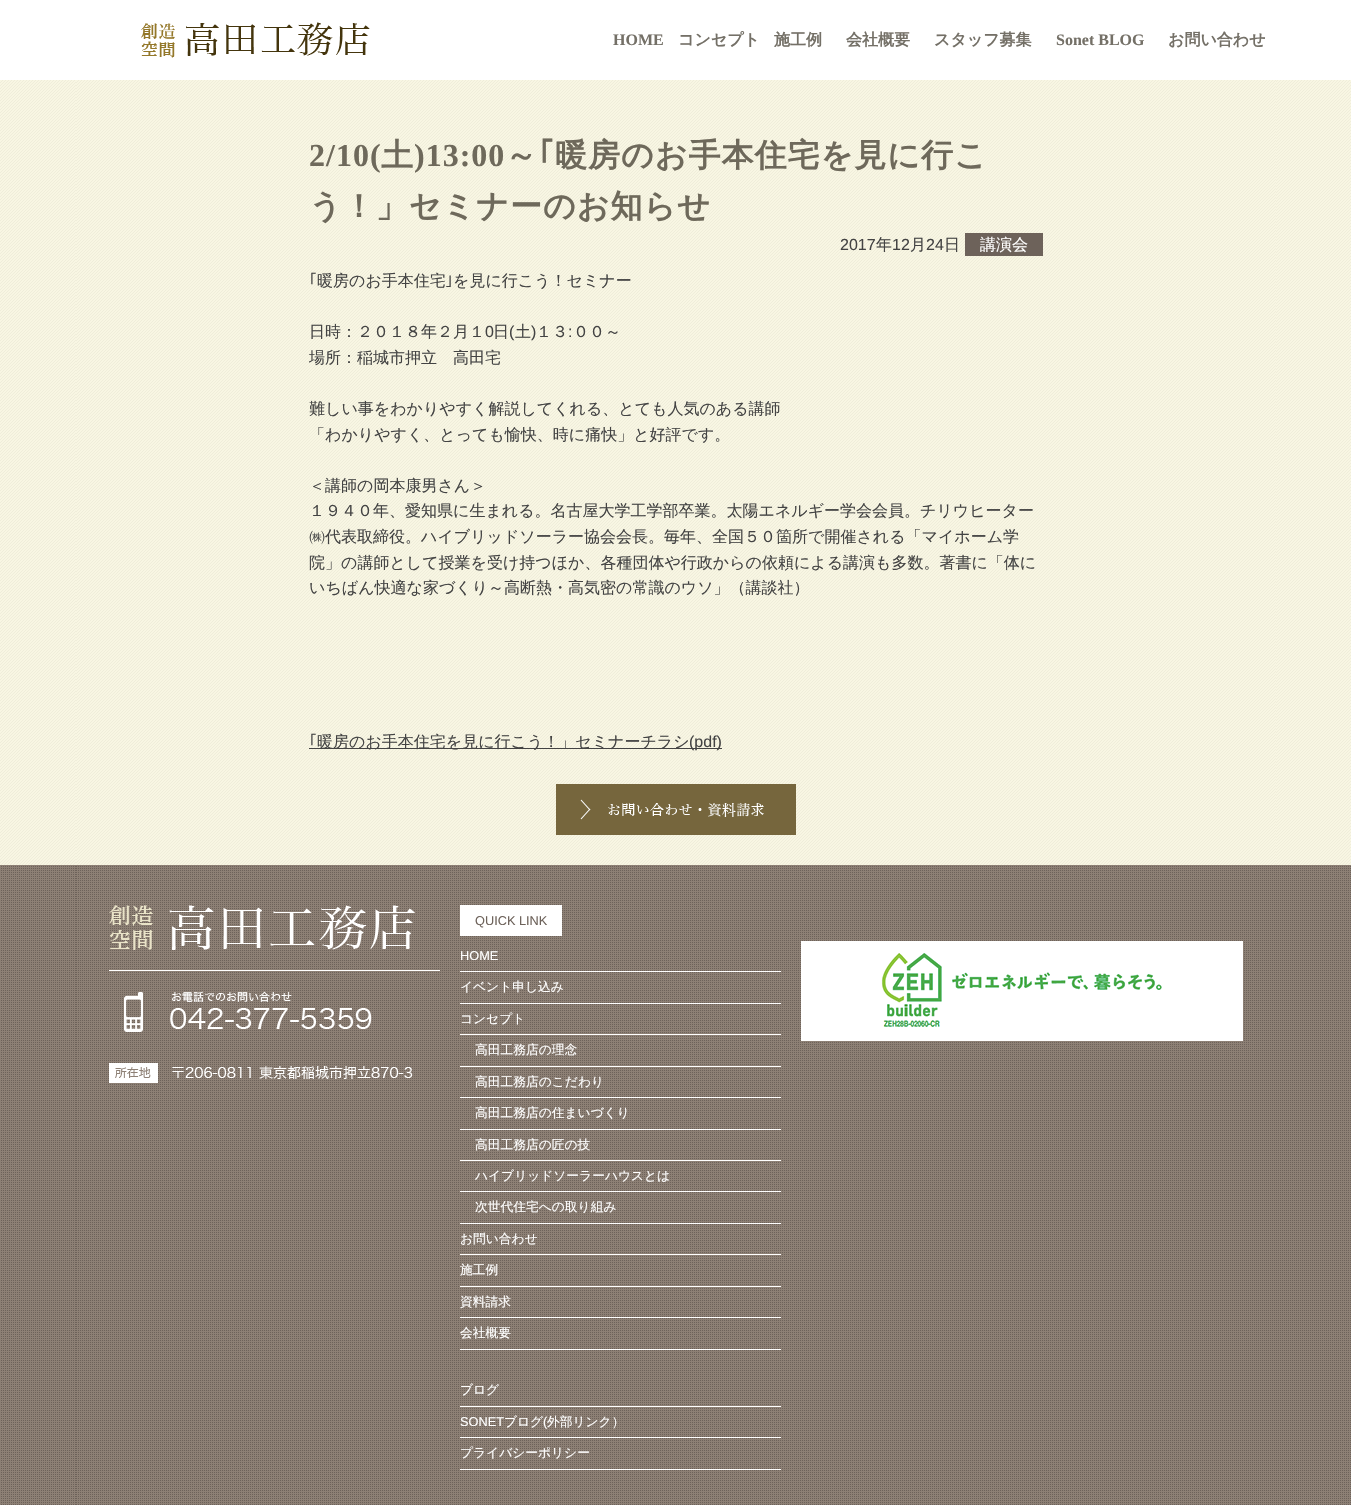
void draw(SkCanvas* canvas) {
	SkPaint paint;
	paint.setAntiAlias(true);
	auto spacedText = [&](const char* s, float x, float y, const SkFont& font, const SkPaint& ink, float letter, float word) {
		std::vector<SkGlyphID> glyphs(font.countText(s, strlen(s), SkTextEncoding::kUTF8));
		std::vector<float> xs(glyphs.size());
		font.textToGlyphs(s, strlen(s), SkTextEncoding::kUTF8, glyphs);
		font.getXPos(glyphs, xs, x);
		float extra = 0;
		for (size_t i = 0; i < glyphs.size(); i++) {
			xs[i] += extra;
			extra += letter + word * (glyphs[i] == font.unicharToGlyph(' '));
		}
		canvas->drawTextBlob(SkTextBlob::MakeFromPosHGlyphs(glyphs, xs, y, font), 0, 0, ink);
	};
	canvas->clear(0xffffffff);
	canvas->drawImageRect(SkImages::DeferredFromEncodedData(SkData::MakeFromFileName("img1.png")), SkRect::MakeXYWH(0, 80, 1351, 785), SkSamplingOptions());
	canvas->drawImageRect(SkImages::DeferredFromEncodedData(SkData::MakeFromFileName("img2.png")), SkRect::MakeXYWH(76, 80, 1200, 785), SkSamplingOptions());
	canvas->drawImageRect(SkImages::DeferredFromEncodedData(SkData::MakeFromFileName("img3.png")), SkRect::MakeXYWH(141, 22, 229, 36), SkSamplingOptions());
	SkFont f1(fontMgr->matchFamilyStyle("Liberation Serif", SkFontStyle::Bold()), 16);
	f1.setSubpixel(true);
	paint.setColor(0xff747067);
	canvas->drawString("HOME", 613, 45, f1, paint);
	SkFont f2(fontMgr->matchFamilyStyle("WenQuanYi Zen Hei", SkFontStyle::Bold()), 16);
	f2.setSubpixel(true);
	canvas->drawString("コンセプト", 678, 45, f2, paint);
	canvas->drawString("施工例", 774, 45, f2, paint);
	canvas->drawString("会社概要", 846, 45, f2, paint);
	canvas->drawString("スタッフ募集", 934, 45, f2, paint);
	canvas->drawString("Sonet BLOG", 1056, 45, f1, paint);
	canvas->drawString("お問い合わせ", 1168, 45, f2, paint);
	SkFont f3(fontMgr->matchFamilyStyle("Liberation Serif", SkFontStyle::Bold()), 32);
	f3.setSubpixel(true);
	paint.setColor(0xff6e695b);
	spacedText("2/10(", 309, 166, f3, paint, 1, 0);
	SkFont f4(fontMgr->matchFamilyStyle("WenQuanYi Zen Hei", SkFontStyle::Bold()), 32);
	f4.setSubpixel(true);
	spacedText("土", 381, 166, f4, paint, 1, 0);
	spacedText(")13:00", 414, 166, f3, paint, 1, 0);
	spacedText("～", 505, 166, f4, paint, 1, 0);
	SkFont f5(fontMgr->matchFamilyStyle("IPAPGothic", SkFontStyle::Bold()), 32);
	f5.setSubpixel(true);
	spacedText("｢", 538, 166, f5, paint, 1, 0);
	spacedText("暖房のお手本住宅を見に行こ", 555, 166, f4, paint, 1, 0);
	spacedText("う！」セミナーのお知らせ", 309, 217, f4, paint, 1, 0);
	SkFont f6(fontMgr->matchFamilyStyle("Liberation Sans", SkFontStyle::Normal()), 16);
	f6.setSubpixel(true);
	paint.setColor(0xff434343);
	canvas->drawString("2017", 840, 250, f6, paint);
	SkFont f7(fontMgr->matchFamilyStyle("WenQuanYi Zen Hei", SkFontStyle(500, SkFontStyle::kNormal_Width, SkFontStyle::kUpright_Slant)), 16);
	f7.setSubpixel(true);
	canvas->drawString("年", 876, 250, f7, paint);
	canvas->drawString("12", 892, 250, f6, paint);
	canvas->drawString("月", 910, 250, f7, paint);
	canvas->drawString("24", 926, 250, f6, paint);
	canvas->drawString("日", 944, 250, f7, paint);
	paint.setColor(0xff6d625a);
	canvas->drawRect(SkRect::MakeXYWH(965, 233, 78, 23), paint);
	paint.setColor(0xffffffff);
	canvas->drawString("講演会", 980, 250, f7, paint);
	SkFont f8(fontMgr->matchFamilyStyle("IPAPGothic", SkFontStyle::Normal()), 16);
	f8.setSubpixel(true);
	paint.setColor(0xff434343);
	canvas->drawString("｢", 309, 286, f8, paint);
	canvas->drawString("暖房のお手本住宅", 317, 286, f7, paint);
	canvas->drawString("｣", 445, 286, f8, paint);
	canvas->drawString("を見に行こう！セミナー", 453, 286, f7, paint);
	canvas->drawString("日時：２０１８年２月１", 309, 337, f7, paint);
	canvas->drawString("0", 485, 337, f6, paint);
	canvas->drawString("日", 493, 337, f7, paint);
	canvas->drawString("(", 509, 337, f6, paint);
	canvas->drawString("土", 515, 337, f7, paint);
	canvas->drawString(")", 531, 337, f6, paint);
	canvas->drawString("１３", 536, 337, f7, paint);
	canvas->drawString(":", 568, 337, f6, paint);
	canvas->drawString("００～", 573, 337, f7, paint);
	canvas->drawString("場所：稲城市押立　高田宅", 309, 363, f7, paint);
	canvas->drawString("難しい事をわかりやすく解説してくれる、とても人気のある講師", 309, 414, f7, paint);
	canvas->drawString("「わかりやすく、とっても愉快、時に痛快」と好評です。", 309, 440, f7, paint);
	canvas->drawString("＜講師の岡本康男さん＞", 309, 491, f7, paint);
	canvas->drawString("１９４０年、愛知県に生まれる。名古屋大学工学部卒業。太陽エネルギー学会会員。チリウヒーター", 309, 516, f7, paint);
	canvas->drawString("㈱代表取締役。ハイブリッドソーラー協会会長。毎年、全国５０箇所で開催される「マイホーム学", 309, 542, f7, paint);
	canvas->drawString("院」の講師として授業を受け持つほか、各種団体や行政からの依頼による講演も多数。著書に「体に", 309, 568, f7, paint);
	canvas->drawString("いちばん快適な家づくり～高断熱・高気密の常識のウソ」（講談社）", 309, 593, f7, paint);
	canvas->drawString("｢", 309, 747, f8, paint);
	canvas->drawRect(SkRect::MakeXYWH(309, 748, 413, 1), paint);
	canvas->drawString("暖房のお手本住宅を見に行こう！」セミナーチラシ", 317, 747, f7, paint);
	canvas->drawString("(pdf)", 689, 747, f6, paint);
	canvas->drawImageRect(SkImages::DeferredFromEncodedData(SkData::MakeFromFileName("img4.png")), SkRect::MakeXYWH(556, 784, 240, 51), SkSamplingOptions());
	canvas->drawImageRect(SkImages::DeferredFromEncodedData(SkData::MakeFromFileName("img5.png")), SkRect::MakeXYWH(76, 865, 1200, 640), SkSamplingOptions());
	canvas->drawImageRect(SkImages::DeferredFromEncodedData(SkData::MakeFromFileName("img6.png")), SkRect::MakeXYWH(0, 865, 76, 640), SkSamplingOptions());
	paint.setColor(0xffffffff);
	canvas->drawRect(SkRect::MakeXYWH(109, 970, 331, 1), paint);
	canvas->drawImageRect(SkImages::DeferredFromEncodedData(SkData::MakeFromFileName("img7.png")), SkRect::MakeXYWH(109, 905, 306, 45), SkSamplingOptions());
	canvas->drawImageRect(SkImages::DeferredFromEncodedData(SkData::MakeFromFileName("img8.png")), SkRect::MakeXYWH(124, 991, 248, 41), SkSamplingOptions());
	canvas->drawImageRect(SkImages::DeferredFromEncodedData(SkData::MakeFromFileName("img9.png")), SkRect::MakeXYWH(109, 1063, 304, 20), SkSamplingOptions());
	canvas->drawRect(SkRect::MakeXYWH(460, 905, 102, 31), paint);
	SkFont f9(fontMgr->matchFamilyStyle("Liberation Sans", SkFontStyle::Normal()), 12.75);
	f9.setSubpixel(true);
	paint.setColor(0xff6d625a);
	canvas->drawString("QUICK LINK", 475, 925, f9, paint);
	paint.setColor(0xffffffff);
	canvas->drawRect(SkRect::MakeXYWH(460, 971, 321, 1), paint);
	canvas->drawString("HOME", 460, 960, f9, paint);
	canvas->drawRect(SkRect::MakeXYWH(460, 1003, 321, 1), paint);
	SkFont f10(fontMgr->matchFamilyStyle("WenQuanYi Zen Hei", SkFontStyle(500, SkFontStyle::kNormal_Width, SkFontStyle::kUpright_Slant)), 12.75);
	f10.setSubpixel(true);
	canvas->drawString("イベント申し込み", 460, 991, f10, paint);
	canvas->drawRect(SkRect::MakeXYWH(460, 1034, 321, 1), paint);
	canvas->drawString("コンセプト", 460, 1023, f10, paint);
	canvas->drawRect(SkRect::MakeXYWH(460, 1066, 321, 1), paint);
	canvas->drawString("高田工務店の理念", 475, 1054, f10, paint);
	canvas->drawRect(SkRect::MakeXYWH(460, 1097, 321, 1), paint);
	canvas->drawString("高田工務店のこだわり", 475, 1086, f10, paint);
	canvas->drawRect(SkRect::MakeXYWH(460, 1129, 321, 1), paint);
	canvas->drawString("高田工務店の住まいづくり", 475, 1117, f10, paint);
	canvas->drawRect(SkRect::MakeXYWH(460, 1160, 321, 1), paint);
	canvas->drawString("高田工務店の匠の技", 475, 1149, f10, paint);
	canvas->drawRect(SkRect::MakeXYWH(460, 1191, 321, 1), paint);
	canvas->drawString("ハイブリッドソーラーハウスとは", 475, 1180, f10, paint);
	canvas->drawRect(SkRect::MakeXYWH(460, 1223, 321, 1), paint);
	canvas->drawString("次世代住宅への取り組み", 475, 1211, f10, paint);
	canvas->drawRect(SkRect::MakeXYWH(460, 1254, 321, 1), paint);
	canvas->drawString("お問い合わせ", 460, 1243, f10, paint);
	canvas->drawRect(SkRect::MakeXYWH(460, 1286, 321, 1), paint);
	canvas->drawString("施工例", 460, 1274, f10, paint);
	canvas->drawRect(SkRect::MakeXYWH(460, 1317, 321, 1), paint);
	canvas->drawString("資料請求", 460, 1306, f10, paint);
	canvas->drawRect(SkRect::MakeXYWH(460, 1349, 321, 1), paint);
	canvas->drawString("会社概要", 460, 1337, f10, paint);
	canvas->drawRect(SkRect::MakeXYWH(460, 1406, 321, 1), paint);
	canvas->drawString("ブログ", 460, 1394, f10, paint);
	canvas->drawRect(SkRect::MakeXYWH(460, 1437, 321, 1), paint);
	canvas->drawString("SONET", 460, 1426, f9, paint);
	canvas->drawString("ブログ", 504, 1426, f10, paint);
	canvas->drawString("(", 543, 1426, f9, paint);
	canvas->drawString("外部リンク）", 547, 1426, f10, paint);
	canvas->drawRect(SkRect::MakeXYWH(460, 1469, 321, 1), paint);
	canvas->drawString("プライバシーポリシー", 460, 1457, f10, paint);
	canvas->drawRect(SkRect::MakeXYWH(801, 941, 442, 100), paint);
	canvas->drawImageRect(SkImages::DeferredFromEncodedData(SkData::MakeFromFileName("img10.png")), SkRect::MakeXYWH(881, 953, 281, 74), SkSamplingOptions());
	canvas->drawImageRect(SkImages::DeferredFromEncodedData(SkData::MakeFromFileName("img11.png")), SkRect::MakeXYWH(1276, 865, 75, 640), SkSamplingOptions());
}
